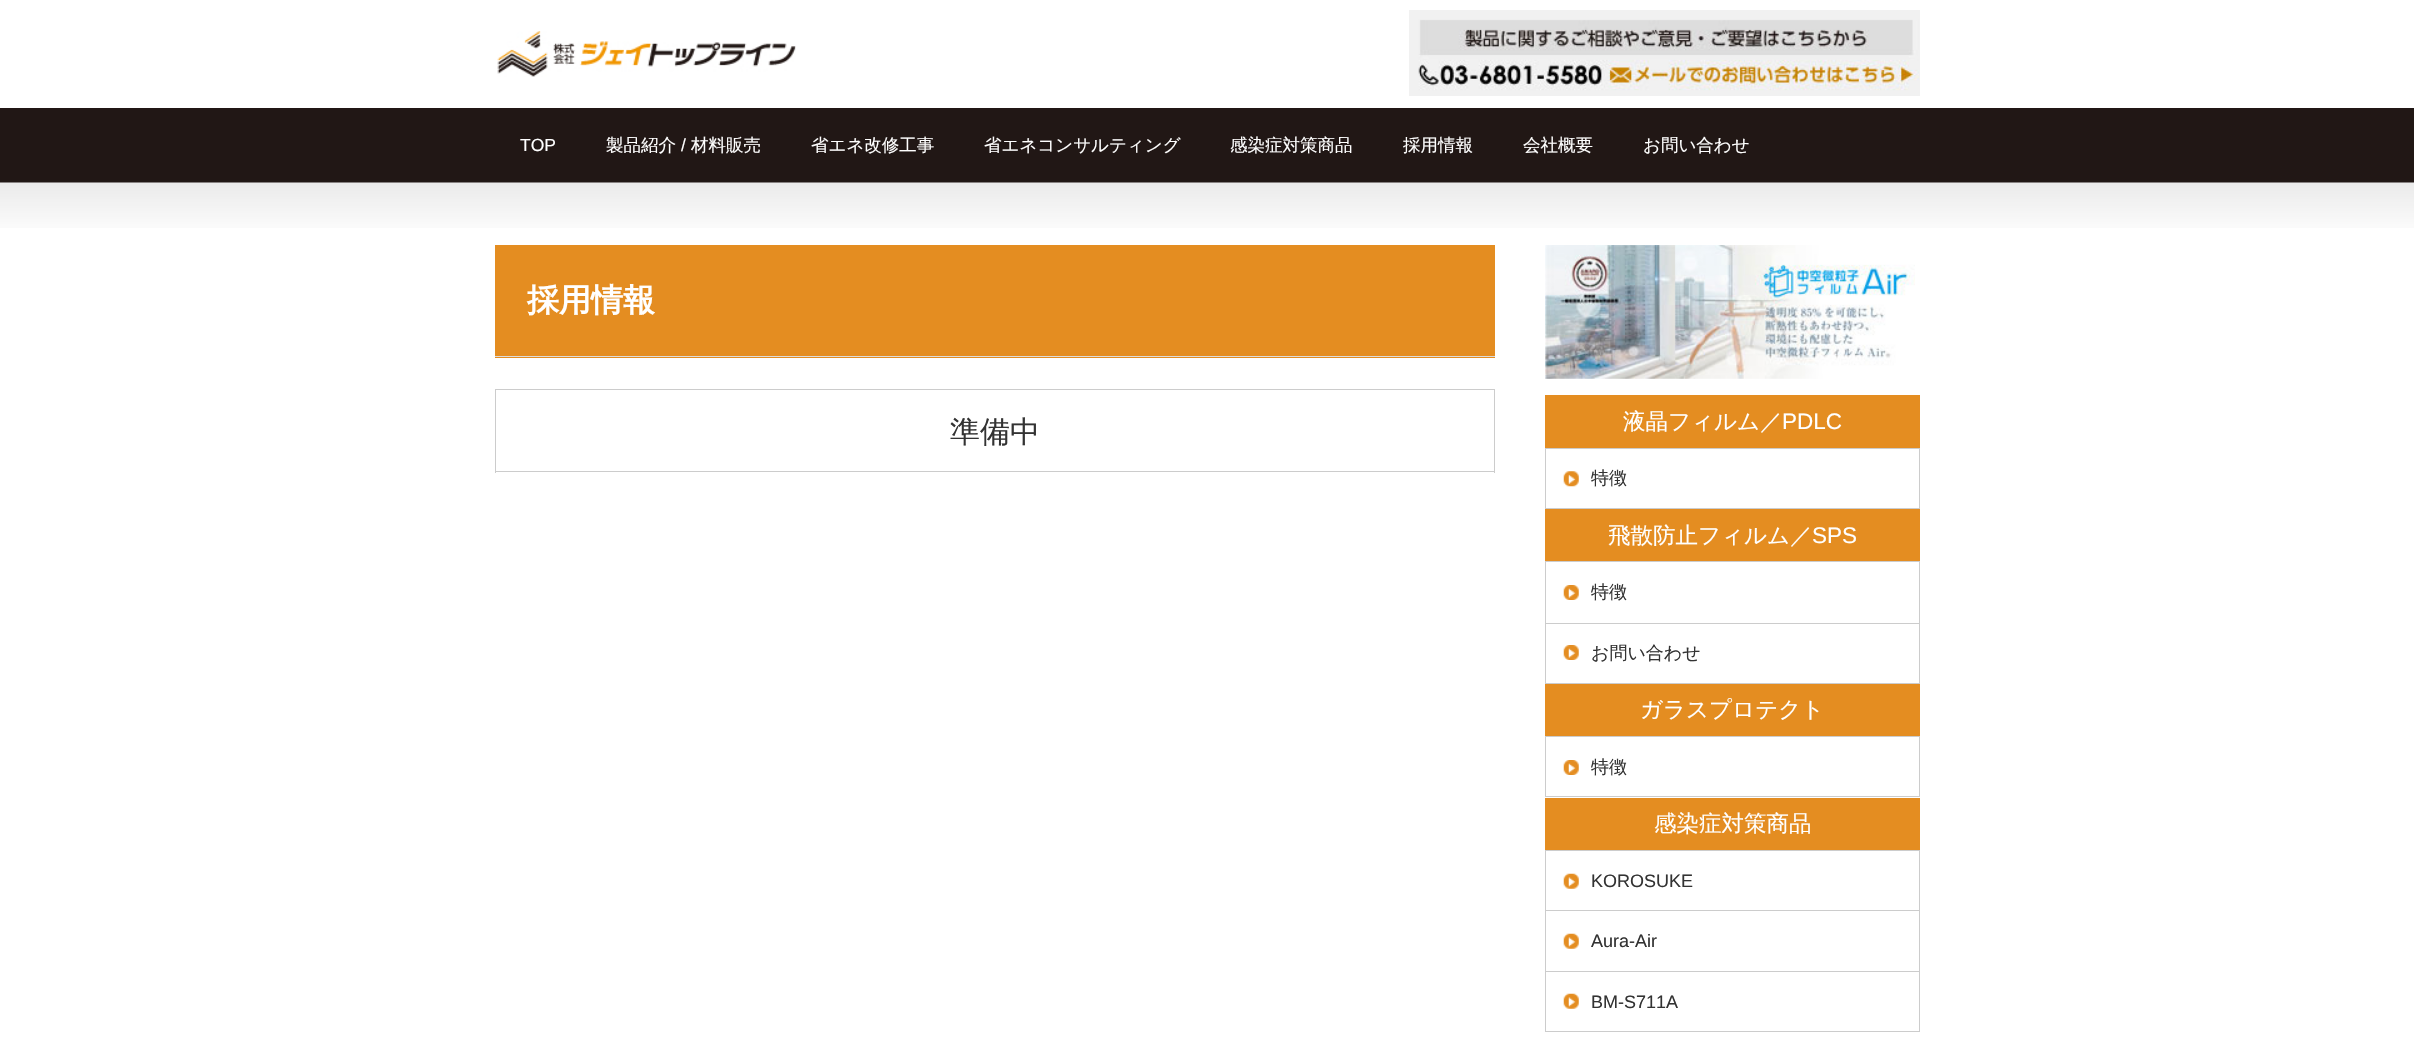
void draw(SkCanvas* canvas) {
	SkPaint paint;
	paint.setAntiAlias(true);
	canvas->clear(0xffffffff);
	canvas->drawImageRect(SkImages::DeferredFromEncodedData(SkData::MakeFromFileName("img1.png")), SkRect::MakeXYWH(497, 31, 299, 46), SkSamplingOptions());
	canvas->drawImageRect(SkImages::DeferredFromEncodedData(SkData::MakeFromFileName("img2.png")), SkRect::MakeXYWH(1409, 10, 511, 86), SkSamplingOptions());
	paint.setColor(0xff211715);
	canvas->drawRect(SkRect::MakeXYWH(0, 108, 2414, 75), paint);
	SkFont f1(fontMgr->matchFamilyStyle("Liberation Sans", SkFontStyle::Normal()), 17.5);
	f1.setSubpixel(true);
	paint.setColor(0xffffffff);
	canvas->drawString("TOP", 520, 151, f1, paint);
	SkFont f2(fontMgr->matchFamilyStyle("WenQuanYi Zen Hei", SkFontStyle(500, SkFontStyle::kNormal_Width, SkFontStyle::kUpright_Slant)), 17.5);
	f2.setSubpixel(true);
	canvas->drawString("製品紹介", 606, 151, f2, paint);
	canvas->drawString("/", 681, 151, f1, paint);
	canvas->drawString("材料販売", 691, 151, f2, paint);
	canvas->drawString("省エネ改修工事", 811, 151, f2, paint);
	canvas->drawString("省エネコンサルティング", 984, 151, f2, paint);
	canvas->drawString("感染症対策商品", 1230, 151, f2, paint);
	canvas->drawString("採用情報", 1403, 151, f2, paint);
	canvas->drawString("会社概要", 1523, 151, f2, paint);
	canvas->drawString("お問い合わせ", 1643, 151, f2, paint);
	canvas->drawImageRect(SkImages::DeferredFromEncodedData(SkData::MakeFromFileName("img3.png")), SkRect::MakeXYWH(0, 182, 2414, 46), SkSamplingOptions());
	paint.setColor(0xffe48d21);
	canvas->drawRect(SkRect::MakeXYWH(495, 245, 1000, 113), paint);
	paint.setColor(0xffdddddd);
	canvas->drawRect(SkRect::MakeXYWH(495, 356, 1000, 1), paint);
	SkFont f3(fontMgr->matchFamilyStyle("WenQuanYi Zen Hei", SkFontStyle::Bold()), 32);
	f3.setSubpixel(true);
	paint.setColor(0xffffffff);
	canvas->drawString("採用情報", 527, 311, f3, paint);
	paint.setColor(0xffcccccc);
	canvas->drawRect(SkRect::MakeXYWH(495, 389, 1000, 1), paint);
	canvas->drawRect(SkRect::MakeXYWH(1494, 389, 1, 84), paint);
	canvas->drawRect(SkRect::MakeXYWH(495, 471, 1000, 1), paint);
	canvas->drawRect(SkRect::MakeXYWH(495, 389, 1, 84), paint);
	SkFont f4(fontMgr->matchFamilyStyle("WenQuanYi Zen Hei", SkFontStyle(500, SkFontStyle::kNormal_Width, SkFontStyle::kUpright_Slant)), 30);
	f4.setSubpixel(true);
	paint.setColor(0xff333333);
	canvas->drawString("準備中", 950, 442, f4, paint);
	canvas->drawImageRect(SkImages::DeferredFromEncodedData(SkData::MakeFromFileName("img4.png")), SkRect::MakeXYWH(1545, 245, 370, 134), SkSamplingOptions());
	paint.setColor(0xffcccccc);
	canvas->drawRect(SkRect::MakeXYWH(1545, 508, 375, 1), paint);
	paint.setColor(0xffe48d21);
	canvas->drawRect(SkRect::MakeXYWH(1545, 395, 375, 53), paint);
	SkFont f5(fontMgr->matchFamilyStyle("WenQuanYi Zen Hei", SkFontStyle(500, SkFontStyle::kNormal_Width, SkFontStyle::kUpright_Slant)), 22.5);
	f5.setSubpixel(true);
	paint.setColor(0xffffffff);
	canvas->drawString("液晶フィルム／", 1623, 429, f5, paint);
	SkFont f6(fontMgr->matchFamilyStyle("Liberation Sans", SkFontStyle::Normal()), 22.5);
	f6.setSubpixel(true);
	canvas->drawString("PDLC", 1782, 429, f6, paint);
	canvas->save();
	canvas->clipRect(SkRect::MakeXYWH(1545, 395, 375, 113));
	paint.setStroke(true);
	paint.setStrokeWidth(1);
	paint.setColor(0xffcccccc);
	canvas->drawRect(SkRect::MakeXYWH(1545.5, 448.5, 374, 60), paint);
	canvas->restore();
	canvas->drawImageRect(SkImages::DeferredFromEncodedData(SkData::MakeFromFileName("img5.png")), SkRect::MakeXYWH(1563, 471, 16, 16), SkSamplingOptions());
	SkFont f7(fontMgr->matchFamilyStyle("WenQuanYi Zen Hei", SkFontStyle(500, SkFontStyle::kNormal_Width, SkFontStyle::kUpright_Slant)), 18);
	f7.setSubpixel(true);
	paint.setStroke(false);
	paint.setColor(0xff333333);
	canvas->drawString("特徴", 1591, 484, f7, paint);
	paint.setColor(0xffcccccc);
	canvas->drawRect(SkRect::MakeXYWH(1545, 683, 375, 1), paint);
	paint.setColor(0xffe48d21);
	canvas->drawRect(SkRect::MakeXYWH(1545, 509, 375, 52), paint);
	paint.setColor(0xffffffff);
	canvas->drawString("飛散防止フィルム／", 1608, 543, f5, paint);
	canvas->drawString("SPS", 1812, 543, f6, paint);
	paint.setStroke(true);
	paint.setColor(0xffcccccc);
	canvas->drawRect(SkRect::MakeXYWH(1545.5, 561.5, 374, 62), paint);
	canvas->drawImageRect(SkImages::DeferredFromEncodedData(SkData::MakeFromFileName("img6.png")), SkRect::MakeXYWH(1563, 585, 16, 15), SkSamplingOptions());
	paint.setStroke(false);
	paint.setColor(0xff333333);
	canvas->drawString("特徴", 1591, 598, f7, paint);
	canvas->save();
	canvas->clipRect(SkRect::MakeXYWH(1545, 509, 375, 174));
	paint.setStroke(true);
	paint.setColor(0xffcccccc);
	canvas->drawRect(SkRect::MakeXYWH(1545.5, 623.5, 374, 60), paint);
	canvas->restore();
	canvas->drawImageRect(SkImages::DeferredFromEncodedData(SkData::MakeFromFileName("img7.png")), SkRect::MakeXYWH(1563, 645, 16, 15), SkSamplingOptions());
	paint.setStroke(false);
	paint.setColor(0xff333333);
	canvas->drawString("お問い合わせ", 1591, 659, f7, paint);
	paint.setColor(0xffcccccc);
	canvas->drawRect(SkRect::MakeXYWH(1545, 796, 375, 1), paint);
	paint.setColor(0xffe48d21);
	canvas->drawRect(SkRect::MakeXYWH(1545, 684, 375, 52), paint);
	paint.setColor(0xffffffff);
	canvas->drawString("ガラスプロテクト", 1640, 717, f5, paint);
	canvas->save();
	canvas->clipRect(SkRect::MakeXYWH(1545, 684, 375, 112));
	paint.setStroke(true);
	paint.setColor(0xffcccccc);
	canvas->drawRect(SkRect::MakeXYWH(1545.5, 736.5, 374, 61), paint);
	canvas->restore();
	canvas->drawImageRect(SkImages::DeferredFromEncodedData(SkData::MakeFromFileName("img7.png")), SkRect::MakeXYWH(1563, 760, 16, 15), SkSamplingOptions());
	paint.setStroke(false);
	paint.setColor(0xff333333);
	canvas->drawString("特徴", 1591, 773, f7, paint);
	paint.setColor(0xffcccccc);
	canvas->drawRect(SkRect::MakeXYWH(1545, 1031, 375, 1), paint);
	paint.setColor(0xffe48d21);
	canvas->drawRect(SkRect::MakeXYWH(1545, 798, 375, 52), paint);
	paint.setColor(0xffffffff);
	canvas->drawString("感染症対策商品", 1654, 831, f5, paint);
	paint.setStroke(true);
	paint.setColor(0xffcccccc);
	canvas->drawRect(SkRect::MakeXYWH(1545.5, 850.5, 374, 60), paint);
	canvas->drawImageRect(SkImages::DeferredFromEncodedData(SkData::MakeFromFileName("img8.png")), SkRect::MakeXYWH(1563, 873, 16, 16), SkSamplingOptions());
	SkFont f8(fontMgr->matchFamilyStyle("Liberation Sans", SkFontStyle::Normal()), 18);
	f8.setSubpixel(true);
	paint.setStroke(false);
	paint.setColor(0xff333333);
	canvas->drawString("KOROSUKE", 1591, 887, f8, paint);
	paint.setStroke(true);
	paint.setColor(0xffcccccc);
	canvas->drawRect(SkRect::MakeXYWH(1545.5, 910.5, 374, 62), paint);
	canvas->drawImageRect(SkImages::DeferredFromEncodedData(SkData::MakeFromFileName("img8.png")), SkRect::MakeXYWH(1563, 933, 16, 16), SkSamplingOptions());
	paint.setStroke(false);
	paint.setColor(0xff333333);
	canvas->drawString("Aura-Air", 1591, 947, f8, paint);
	paint.setColor(0xffffffff);
	canvas->drawRect(SkRect::MakeXYWH(1546, 972, 373, 1), paint);
	canvas->save();
	canvas->clipRect(SkRect::MakeXYWH(1545, 798, 375, 233));
	paint.setStroke(true);
	paint.setColor(0xffcccccc);
	canvas->drawRect(SkRect::MakeXYWH(1545.5, 971.5, 374, 61), paint);
	canvas->restore();
	canvas->drawImageRect(SkImages::DeferredFromEncodedData(SkData::MakeFromFileName("img8.png")), SkRect::MakeXYWH(1563, 993, 16, 16), SkSamplingOptions());
	paint.setStroke(false);
	paint.setColor(0xff333333);
	canvas->drawString("BM-S711A", 1591, 1008, f8, paint);
}
